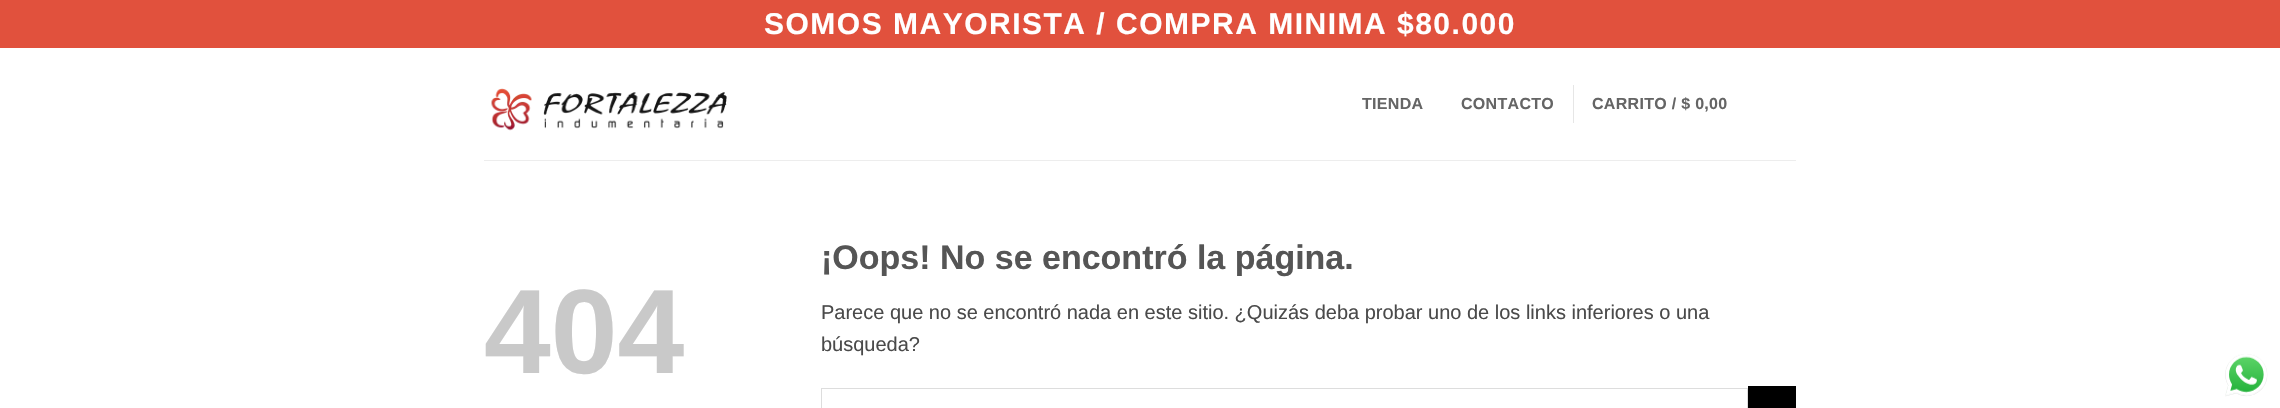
void draw(SkCanvas* canvas) {
	SkPaint paint;
	paint.setAntiAlias(true);
	auto spacedText = [&](const char* s, float x, float y, const SkFont& font, const SkPaint& ink, float letter, float word) {
		std::vector<SkGlyphID> glyphs(font.countText(s, strlen(s), SkTextEncoding::kUTF8));
		std::vector<float> xs(glyphs.size());
		font.textToGlyphs(s, strlen(s), SkTextEncoding::kUTF8, glyphs);
		font.getXPos(glyphs, xs, x);
		float extra = 0;
		for (size_t i = 0; i < glyphs.size(); i++) {
			xs[i] += extra;
			extra += letter + word * (glyphs[i] == font.unicharToGlyph(' '));
		}
		canvas->drawTextBlob(SkTextBlob::MakeFromPosHGlyphs(glyphs, xs, y, font), 0, 0, ink);
	};
	canvas->clear(0xffffffff);
	paint.setColor(0xffe1513d);
	canvas->drawRect(SkRect::MakeXYWH(0, 0, 2280, 48), paint);
	SkFont f1(fontMgr->matchFamilyStyle("Liberation Sans", SkFontStyle::Bold()), 30);
	f1.setSubpixel(true);
	paint.setColor(0xffffffff);
	spacedText("SOMOS MAYORISTA / COMPRA MINIMA $80.000", 764, 34, f1, paint, 1.5, 0);
	canvas->drawImageRect(SkImages::DeferredFromEncodedData(SkData::MakeFromFileName("img1.png")), SkRect::MakeXYWH(491, 88, 236, 43), SkSamplingOptions());
	SkFont f2(fontMgr->matchFamilyStyle("Liberation Sans", SkFontStyle::Bold()), 16);
	f2.setSubpixel(true);
	paint.setColor(0xff656565);
	spacedText("TIENDA", 1362, 109, f2, paint, 0.3, 0);
	spacedText("CONTACTO", 1461, 109, f2, paint, 0.3, 0);
	paint.setColor(0xffe6e6e6);
	canvas->drawRect(SkRect::MakeXYWH(1573, 85, 1, 38), paint);
	paint.setColor(0xff656565);
	spacedText("CARRITO / $ 0,00", 1592, 109, f2, paint, 0.3, 0);
	paint.setColor(0xffededed);
	canvas->drawRect(SkRect::MakeXYWH(484, 160, 1312, 1), paint);
	SkFont f3(fontMgr->matchFamilyStyle("Liberation Sans", SkFontStyle::Bold()), 120);
	f3.setSubpixel(true);
	paint.setColor(0xffc9c9c9);
	canvas->drawString("404", 484, 373, f3, paint);
	SkFont f4(fontMgr->matchFamilyStyle("Liberation Sans", SkFontStyle::Bold()), 34);
	f4.setSubpixel(true);
	paint.setColor(0xff555555);
	canvas->drawString("¡Oops! No se encontró la página.", 821, 269, f4, paint);
	SkFont f5(fontMgr->matchFamilyStyle("Liberation Sans", SkFontStyle::Normal()), 20);
	f5.setSubpixel(true);
	paint.setColor(0xff4a4a4a);
	canvas->drawString("Parece que no se encontró nada en este sitio. ¿Quizás deba probar uno de los links inferiores o una", 821, 319, f5, paint);
	canvas->drawString("búsqueda?", 821, 351, f5, paint);
	paint.setStroke(true);
	paint.setStrokeWidth(1);
	paint.setColor(0xffdddddd);
	canvas->drawRect(SkRect::MakeXYWH(821.5, 388.5, 926, 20), paint);
	paint.setStroke(false);
	paint.setColor(0xff000000);
	canvas->drawRect(SkRect::MakeXYWH(1748, 386, 48, 22), paint);
	canvas->drawImageRect(SkImages::DeferredFromEncodedData(SkData::MakeFromFileName("img2.png")), SkRect::MakeXYWH(2225, 354, 43, 43), SkSamplingOptions());
}
